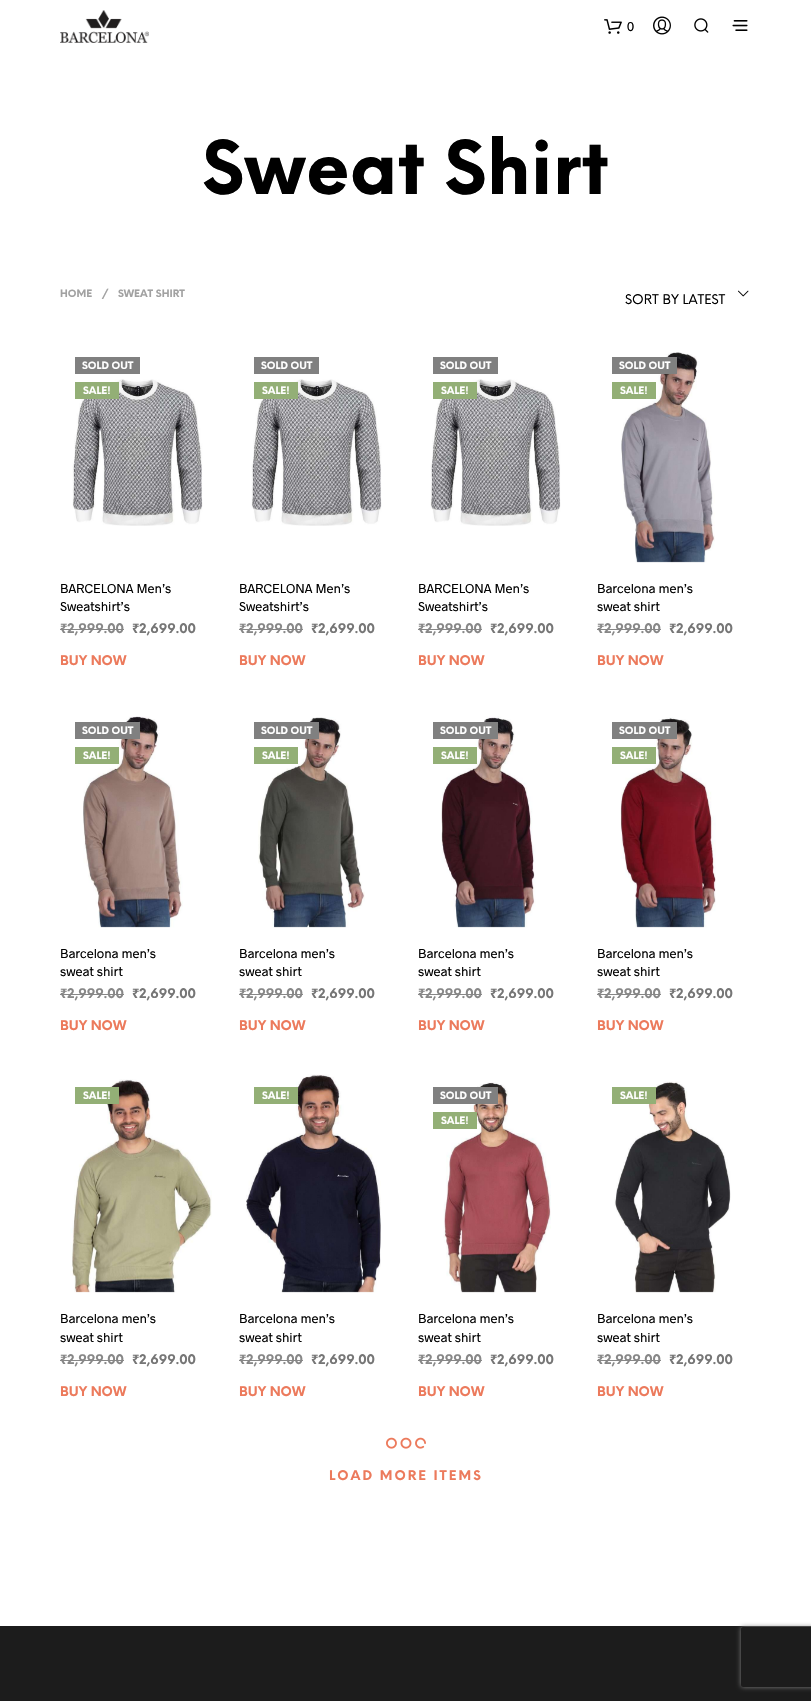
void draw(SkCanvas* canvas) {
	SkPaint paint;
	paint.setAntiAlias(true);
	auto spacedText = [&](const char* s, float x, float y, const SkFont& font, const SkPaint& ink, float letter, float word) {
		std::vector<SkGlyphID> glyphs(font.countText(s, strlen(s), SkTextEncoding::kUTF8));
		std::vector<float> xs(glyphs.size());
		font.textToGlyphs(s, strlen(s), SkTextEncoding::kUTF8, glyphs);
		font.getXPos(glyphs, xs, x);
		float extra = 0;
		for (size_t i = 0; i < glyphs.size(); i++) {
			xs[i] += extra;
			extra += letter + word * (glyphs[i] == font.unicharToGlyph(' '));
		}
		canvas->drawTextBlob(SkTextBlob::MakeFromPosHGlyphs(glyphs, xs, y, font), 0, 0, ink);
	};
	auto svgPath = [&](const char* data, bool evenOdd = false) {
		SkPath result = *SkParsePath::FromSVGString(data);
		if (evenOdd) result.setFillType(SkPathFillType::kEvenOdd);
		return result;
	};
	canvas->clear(0xffffffff);
	canvas->drawImageRect(SkImages::DeferredFromEncodedData(SkData::MakeFromFileName("img1.png")), SkRect::MakeXYWH(60, 10, 89, 33), SkSamplingOptions());
	canvas->drawImageRect(SkImages::DeferredFromEncodedData(SkData::MakeFromFileName("img2.png")), SkRect::MakeXYWH(604, 19, 18, 15), SkSamplingOptions());
	SkFont f1(fontMgr->matchFamilyStyle("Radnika", SkFontStyle::Normal()), 13);
	f1.setSubpixel(true);
	paint.setColor(0xff000000);
	canvas->drawString("0", 627, 31, f1, paint);
	canvas->drawImageRect(SkImages::DeferredFromEncodedData(SkData::MakeFromFileName("img3.png")), SkRect::MakeXYWH(653, 16, 18, 19), SkSamplingOptions());
	canvas->drawImageRect(SkImages::DeferredFromEncodedData(SkData::MakeFromFileName("img4.png")), SkRect::MakeXYWH(694, 18, 15, 15), SkSamplingOptions());
	canvas->drawImageRect(SkImages::DeferredFromEncodedData(SkData::MakeFromFileName("img5.png")), SkRect::MakeXYWH(732, 20, 16, 11), SkSamplingOptions());
	SkFont f2(fontMgr->matchFamilyStyle("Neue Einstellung", SkFontStyle::Bold()), 72.5);
	f2.setSubpixel(true);
	canvas->drawString("Sweat Shirt", 202, 194, f2, paint);
	SkFont f3(fontMgr->matchFamilyStyle("Neue Einstellung", SkFontStyle::Bold()), 10);
	f3.setSubpixel(true);
	paint.setColor(0xffa1a1a1);
	canvas->drawString("HOME", 60, 297, f3, paint);
	canvas->drawString("/", 102, 297, f3, paint);
	canvas->drawString("SWEAT SHIRT", 118, 297, f3, paint);
	SkFont f4(fontMgr->matchFamilyStyle("Neue Einstellung", SkFontStyle::Normal()), 13);
	f4.setSubpixel(true);
	paint.setColor(0xff000000);
	canvas->drawString("SORT BY LATEST", 625, 304, f4, paint);
	canvas->drawImageRect(SkImages::DeferredFromEncodedData(SkData::MakeFromFileName("img6.png")), SkRect::MakeXYWH(738, 290, 11, 7), SkSamplingOptions());
	paint.setColor(0xff808080);
	canvas->drawRect(SkRect::MakeXYWH(75, 357, 65, 17), paint);
	paint.setColor(0xffffffff);
	canvas->drawString("SOLD OUT", 82, 369, f3, paint);
	canvas->drawImageRect(SkImages::DeferredFromEncodedData(SkData::MakeFromFileName("img7.png")), SkRect::MakeXYWH(72, 379, 131, 147), SkSamplingOptions());
	paint.setColor(0xff93af76);
	canvas->drawRect(SkRect::MakeXYWH(75, 382, 44, 17), paint);
	paint.setColor(0xffffffff);
	canvas->drawString("SALE!", 83, 394, f3, paint);
	paint.setColor(0xff000000);
	canvas->drawString("BARCELONA Men’s", 60, 593, f1, paint);
	canvas->drawString("Sweatshirt’s", 60, 611, f1, paint);
	SkFont f5(fontMgr->matchFamilyStyle("Noto Sans", SkFontStyle::Bold()), 13);
	f5.setSubpixel(true);
	paint.setColor(0xff878787);
	canvas->drawString("₹", 60, 633, f5, paint);
	SkFont f6(fontMgr->matchFamilyStyle("Neue Einstellung", SkFontStyle::Bold()), 13);
	f6.setSubpixel(true);
	canvas->drawString("2,999.00", 67, 633, f6, paint);
	canvas->drawRect(SkRect::MakeXYWH(60, 629, 7, 1), paint);
	canvas->drawRect(SkRect::MakeXYWH(67, 629, 57, 1), paint);
	paint.setColor(0xff767676);
	canvas->drawString("₹", 132, 633, f5, paint);
	canvas->drawString("2,699.00", 139, 633, f6, paint);
	paint.setColor(0xffec7a5c);
	canvas->drawString("BUY NOW", 60, 665, f6, paint);
	paint.setColor(0xff808080);
	canvas->drawRect(SkRect::MakeXYWH(254, 357, 65, 17), paint);
	paint.setColor(0xffffffff);
	canvas->drawString("SOLD OUT", 261, 369, f3, paint);
	canvas->drawImageRect(SkImages::DeferredFromEncodedData(SkData::MakeFromFileName("img7.png")), SkRect::MakeXYWH(251, 379, 131, 147), SkSamplingOptions());
	paint.setColor(0xff93af76);
	canvas->drawRect(SkRect::MakeXYWH(254, 382, 44, 17), paint);
	paint.setColor(0xffffffff);
	canvas->drawString("SALE!", 262, 394, f3, paint);
	paint.setColor(0xff000000);
	canvas->drawString("BARCELONA Men’s", 239, 593, f1, paint);
	canvas->drawString("Sweatshirt’s", 239, 611, f1, paint);
	paint.setColor(0xff878787);
	canvas->drawString("₹", 239, 633, f5, paint);
	canvas->drawString("2,999.00", 246, 633, f6, paint);
	canvas->drawRect(SkRect::MakeXYWH(239, 629, 7, 1), paint);
	canvas->drawRect(SkRect::MakeXYWH(246, 629, 57, 1), paint);
	paint.setColor(0xff767676);
	canvas->drawString("₹", 311, 633, f5, paint);
	canvas->drawString("2,699.00", 318, 633, f6, paint);
	paint.setColor(0xffec7a5c);
	canvas->drawString("BUY NOW", 239, 665, f6, paint);
	paint.setColor(0xff808080);
	canvas->drawRect(SkRect::MakeXYWH(433, 357, 65, 17), paint);
	paint.setColor(0xffffffff);
	canvas->drawString("SOLD OUT", 440, 369, f3, paint);
	canvas->drawImageRect(SkImages::DeferredFromEncodedData(SkData::MakeFromFileName("img8.png")), SkRect::MakeXYWH(430, 379, 131, 147), SkSamplingOptions());
	paint.setColor(0xff93af76);
	canvas->drawRect(SkRect::MakeXYWH(433, 382, 44, 17), paint);
	paint.setColor(0xffffffff);
	canvas->drawString("SALE!", 441, 394, f3, paint);
	paint.setColor(0xff000000);
	canvas->drawString("BARCELONA Men’s", 418, 593, f1, paint);
	canvas->drawString("Sweatshirt’s", 418, 611, f1, paint);
	paint.setColor(0xff878787);
	canvas->drawString("₹", 418, 633, f5, paint);
	canvas->drawString("2,999.00", 425, 633, f6, paint);
	canvas->drawRect(SkRect::MakeXYWH(418, 629, 7, 1), paint);
	canvas->drawRect(SkRect::MakeXYWH(425, 629, 57, 1), paint);
	paint.setColor(0xff767676);
	canvas->drawString("₹", 490, 633, f5, paint);
	canvas->drawString("2,699.00", 497, 633, f6, paint);
	paint.setColor(0xffec7a5c);
	canvas->drawString("BUY NOW", 418, 665, f6, paint);
	canvas->drawImageRect(SkImages::DeferredFromEncodedData(SkData::MakeFromFileName("img9.png")), SkRect::MakeXYWH(621, 352, 94, 211), SkSamplingOptions());
	paint.setColor(0xff808080);
	canvas->drawRect(SkRect::MakeXYWH(612, 357, 65, 17), paint);
	paint.setColor(0xffffffff);
	canvas->drawString("SOLD OUT", 619, 369, f3, paint);
	paint.setColor(0xff93af76);
	canvas->drawRect(SkRect::MakeXYWH(612, 382, 44, 17), paint);
	paint.setColor(0xffffffff);
	canvas->drawString("SALE!", 620, 394, f3, paint);
	paint.setColor(0xff000000);
	canvas->drawString("Barcelona men’s", 597, 593, f1, paint);
	canvas->drawString("sweat shirt", 597, 611, f1, paint);
	paint.setColor(0xff878787);
	canvas->drawString("₹", 597, 633, f5, paint);
	canvas->drawString("2,999.00", 604, 633, f6, paint);
	canvas->drawRect(SkRect::MakeXYWH(597, 629, 7, 1), paint);
	canvas->drawRect(SkRect::MakeXYWH(604, 629, 57, 1), paint);
	paint.setColor(0xff767676);
	canvas->drawString("₹", 669, 633, f5, paint);
	canvas->drawString("2,699.00", 676, 633, f6, paint);
	paint.setColor(0xffec7a5c);
	canvas->drawString("BUY NOW", 597, 665, f6, paint);
	canvas->drawImageRect(SkImages::DeferredFromEncodedData(SkData::MakeFromFileName("img10.png")), SkRect::MakeXYWH(83, 716, 100, 212), SkSamplingOptions());
	paint.setColor(0xff808080);
	canvas->drawRect(SkRect::MakeXYWH(75, 722, 65, 17), paint);
	paint.setColor(0xffffffff);
	canvas->drawString("SOLD OUT", 82, 734, f3, paint);
	paint.setColor(0xff93af76);
	canvas->drawRect(SkRect::MakeXYWH(75, 747, 44, 17), paint);
	paint.setColor(0xffffffff);
	canvas->drawString("SALE!", 83, 759, f3, paint);
	paint.setColor(0xff000000);
	canvas->drawString("Barcelona men’s", 60, 958, f1, paint);
	canvas->drawString("sweat shirt", 60, 976, f1, paint);
	paint.setColor(0xff878787);
	canvas->drawString("₹", 60, 998, f5, paint);
	canvas->drawString("2,999.00", 67, 998, f6, paint);
	canvas->drawRect(SkRect::MakeXYWH(60, 994, 7, 1), paint);
	canvas->drawRect(SkRect::MakeXYWH(67, 994, 57, 1), paint);
	paint.setColor(0xff767676);
	canvas->drawString("₹", 132, 998, f5, paint);
	canvas->drawString("2,699.00", 139, 998, f6, paint);
	paint.setColor(0xffec7a5c);
	canvas->drawString("BUY NOW", 60, 1030, f6, paint);
	canvas->drawImageRect(SkImages::DeferredFromEncodedData(SkData::MakeFromFileName("img11.png")), SkRect::MakeXYWH(258, 717, 107, 211), SkSamplingOptions());
	paint.setColor(0xff808080);
	canvas->drawRect(SkRect::MakeXYWH(254, 722, 65, 17), paint);
	paint.setColor(0xffffffff);
	canvas->drawString("SOLD OUT", 261, 734, f3, paint);
	paint.setColor(0xff93af76);
	canvas->drawRect(SkRect::MakeXYWH(254, 747, 44, 17), paint);
	paint.setColor(0xffffffff);
	canvas->drawString("SALE!", 262, 759, f3, paint);
	paint.setColor(0xff000000);
	canvas->drawString("Barcelona men’s", 239, 958, f1, paint);
	canvas->drawString("sweat shirt", 239, 976, f1, paint);
	paint.setColor(0xff878787);
	canvas->drawString("₹", 239, 998, f5, paint);
	canvas->drawString("2,999.00", 246, 998, f6, paint);
	canvas->drawRect(SkRect::MakeXYWH(239, 994, 7, 1), paint);
	canvas->drawRect(SkRect::MakeXYWH(246, 994, 57, 1), paint);
	paint.setColor(0xff767676);
	canvas->drawString("₹", 311, 998, f5, paint);
	canvas->drawString("2,699.00", 318, 998, f6, paint);
	paint.setColor(0xffec7a5c);
	canvas->drawString("BUY NOW", 239, 1030, f6, paint);
	canvas->drawImageRect(SkImages::DeferredFromEncodedData(SkData::MakeFromFileName("img12.png")), SkRect::MakeXYWH(441, 716, 95, 212), SkSamplingOptions());
	paint.setColor(0xff808080);
	canvas->drawRect(SkRect::MakeXYWH(433, 722, 65, 17), paint);
	paint.setColor(0xffffffff);
	canvas->drawString("SOLD OUT", 440, 734, f3, paint);
	paint.setColor(0xff93af76);
	canvas->drawRect(SkRect::MakeXYWH(433, 747, 44, 17), paint);
	paint.setColor(0xffffffff);
	canvas->drawString("SALE!", 441, 759, f3, paint);
	paint.setColor(0xff000000);
	canvas->drawString("Barcelona men’s", 418, 958, f1, paint);
	canvas->drawString("sweat shirt", 418, 976, f1, paint);
	paint.setColor(0xff878787);
	canvas->drawString("₹", 418, 998, f5, paint);
	canvas->drawString("2,999.00", 425, 998, f6, paint);
	canvas->drawRect(SkRect::MakeXYWH(418, 994, 7, 1), paint);
	canvas->drawRect(SkRect::MakeXYWH(425, 994, 57, 1), paint);
	paint.setColor(0xff767676);
	canvas->drawString("₹", 490, 998, f5, paint);
	canvas->drawString("2,699.00", 497, 998, f6, paint);
	paint.setColor(0xffec7a5c);
	canvas->drawString("BUY NOW", 418, 1030, f6, paint);
	canvas->drawImageRect(SkImages::DeferredFromEncodedData(SkData::MakeFromFileName("img13.png")), SkRect::MakeXYWH(620, 717, 96, 211), SkSamplingOptions());
	paint.setColor(0xff808080);
	canvas->drawRect(SkRect::MakeXYWH(612, 722, 65, 17), paint);
	paint.setColor(0xffffffff);
	canvas->drawString("SOLD OUT", 619, 734, f3, paint);
	paint.setColor(0xff93af76);
	canvas->drawRect(SkRect::MakeXYWH(612, 747, 44, 17), paint);
	paint.setColor(0xffffffff);
	canvas->drawString("SALE!", 620, 759, f3, paint);
	paint.setColor(0xff000000);
	canvas->drawString("Barcelona men’s", 597, 958, f1, paint);
	canvas->drawString("sweat shirt", 597, 976, f1, paint);
	paint.setColor(0xff878787);
	canvas->drawString("₹", 597, 998, f5, paint);
	canvas->drawString("2,999.00", 604, 998, f6, paint);
	canvas->drawRect(SkRect::MakeXYWH(597, 994, 7, 1), paint);
	canvas->drawRect(SkRect::MakeXYWH(604, 994, 57, 1), paint);
	paint.setColor(0xff767676);
	canvas->drawString("₹", 669, 998, f5, paint);
	canvas->drawString("2,699.00", 676, 998, f6, paint);
	paint.setColor(0xffec7a5c);
	canvas->drawString("BUY NOW", 597, 1030, f6, paint);
	canvas->drawImageRect(SkImages::DeferredFromEncodedData(SkData::MakeFromFileName("img14.png")), SkRect::MakeXYWH(70, 1079, 142, 214), SkSamplingOptions());
	paint.setColor(0xff93af76);
	canvas->drawRect(SkRect::MakeXYWH(75, 1087, 44, 17), paint);
	paint.setColor(0xffffffff);
	canvas->drawString("SALE!", 83, 1099, f3, paint);
	paint.setColor(0xff000000);
	canvas->drawString("Barcelona men’s", 60, 1323, f1, paint);
	canvas->drawString("sweat shirt", 60, 1342, f1, paint);
	paint.setColor(0xff878787);
	canvas->drawString("₹", 60, 1364, f5, paint);
	canvas->drawString("2,999.00", 67, 1364, f6, paint);
	canvas->drawRect(SkRect::MakeXYWH(60, 1360, 7, 1), paint);
	canvas->drawRect(SkRect::MakeXYWH(67, 1360, 57, 1), paint);
	paint.setColor(0xff767676);
	canvas->drawString("₹", 132, 1364, f5, paint);
	canvas->drawString("2,699.00", 139, 1364, f6, paint);
	paint.setColor(0xffec7a5c);
	canvas->drawString("BUY NOW", 60, 1396, f6, paint);
	canvas->drawImageRect(SkImages::DeferredFromEncodedData(SkData::MakeFromFileName("img15.png")), SkRect::MakeXYWH(246, 1074, 135, 219), SkSamplingOptions());
	paint.setColor(0xff93af76);
	canvas->drawRect(SkRect::MakeXYWH(254, 1087, 44, 17), paint);
	paint.setColor(0xffffffff);
	canvas->drawString("SALE!", 262, 1099, f3, paint);
	paint.setColor(0xff000000);
	canvas->drawString("Barcelona men’s", 239, 1323, f1, paint);
	canvas->drawString("sweat shirt", 239, 1342, f1, paint);
	paint.setColor(0xff878787);
	canvas->drawString("₹", 239, 1364, f5, paint);
	canvas->drawString("2,999.00", 246, 1364, f6, paint);
	canvas->drawRect(SkRect::MakeXYWH(239, 1360, 7, 1), paint);
	canvas->drawRect(SkRect::MakeXYWH(246, 1360, 57, 1), paint);
	paint.setColor(0xff767676);
	canvas->drawString("₹", 311, 1364, f5, paint);
	canvas->drawString("2,699.00", 318, 1364, f6, paint);
	paint.setColor(0xffec7a5c);
	canvas->drawString("BUY NOW", 239, 1396, f6, paint);
	canvas->drawImageRect(SkImages::DeferredFromEncodedData(SkData::MakeFromFileName("img16.png")), SkRect::MakeXYWH(443, 1082, 108, 211), SkSamplingOptions());
	paint.setColor(0xff808080);
	canvas->drawRect(SkRect::MakeXYWH(433, 1087, 65, 17), paint);
	paint.setColor(0xffffffff);
	canvas->drawString("SOLD OUT", 440, 1099, f3, paint);
	paint.setColor(0xff93af76);
	canvas->drawRect(SkRect::MakeXYWH(433, 1112, 44, 17), paint);
	paint.setColor(0xffffffff);
	canvas->drawString("SALE!", 441, 1124, f3, paint);
	paint.setColor(0xff000000);
	canvas->drawString("Barcelona men’s", 418, 1323, f1, paint);
	canvas->drawString("sweat shirt", 418, 1342, f1, paint);
	paint.setColor(0xff878787);
	canvas->drawString("₹", 418, 1364, f5, paint);
	canvas->drawString("2,999.00", 425, 1364, f6, paint);
	canvas->drawRect(SkRect::MakeXYWH(418, 1360, 7, 1), paint);
	canvas->drawRect(SkRect::MakeXYWH(425, 1360, 57, 1), paint);
	paint.setColor(0xff767676);
	canvas->drawString("₹", 490, 1364, f5, paint);
	canvas->drawString("2,699.00", 497, 1364, f6, paint);
	paint.setColor(0xffec7a5c);
	canvas->drawString("BUY NOW", 418, 1396, f6, paint);
	canvas->drawImageRect(SkImages::DeferredFromEncodedData(SkData::MakeFromFileName("img17.png")), SkRect::MakeXYWH(614, 1081, 117, 212), SkSamplingOptions());
	paint.setColor(0xff93af76);
	canvas->drawRect(SkRect::MakeXYWH(612, 1087, 44, 17), paint);
	paint.setColor(0xffffffff);
	canvas->drawString("SALE!", 620, 1099, f3, paint);
	paint.setColor(0xff000000);
	canvas->drawString("Barcelona men’s", 597, 1323, f1, paint);
	canvas->drawString("sweat shirt", 597, 1342, f1, paint);
	paint.setColor(0xff878787);
	canvas->drawString("₹", 597, 1364, f5, paint);
	canvas->drawString("2,999.00", 604, 1364, f6, paint);
	canvas->drawRect(SkRect::MakeXYWH(597, 1360, 7, 1), paint);
	canvas->drawRect(SkRect::MakeXYWH(604, 1360, 57, 1), paint);
	paint.setColor(0xff767676);
	canvas->drawString("₹", 669, 1364, f5, paint);
	canvas->drawString("2,699.00", 676, 1364, f6, paint);
	paint.setColor(0xffec7a5c);
	canvas->drawString("BUY NOW", 597, 1396, f6, paint);
	canvas->drawImageRect(SkImages::DeferredFromEncodedData(SkData::MakeFromFileName("img18.png")), SkRect::MakeXYWH(386, 1437, 40, 12), SkSamplingOptions());
	spacedText("LOAD MORE ITEMS", 329, 1480, f6, paint, 2, 0);
	paint.setColor(0xff1c1c1c);
	canvas->drawRect(SkRect::MakeXYWH(0, 1626, 811, 75), paint);
	canvas->save();
	canvas->clipPath(svgPath("M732 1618H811V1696H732ZM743 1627H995C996 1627 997 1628 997 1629V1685C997 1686 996 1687 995 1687H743C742 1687 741 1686 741 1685V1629C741 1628 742 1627 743 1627Z", true), true);
	paint.setColor(0xff808080);
	paint.setMaskFilter(SkMaskFilter::MakeBlur(kNormal_SkBlurStyle, 2.5));
	canvas->drawRoundRect(SkRect::MakeXYWH(741, 1627, 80, 60), 2, 2, paint);
	paint.setMaskFilter(nullptr);
	canvas->restore();
}
